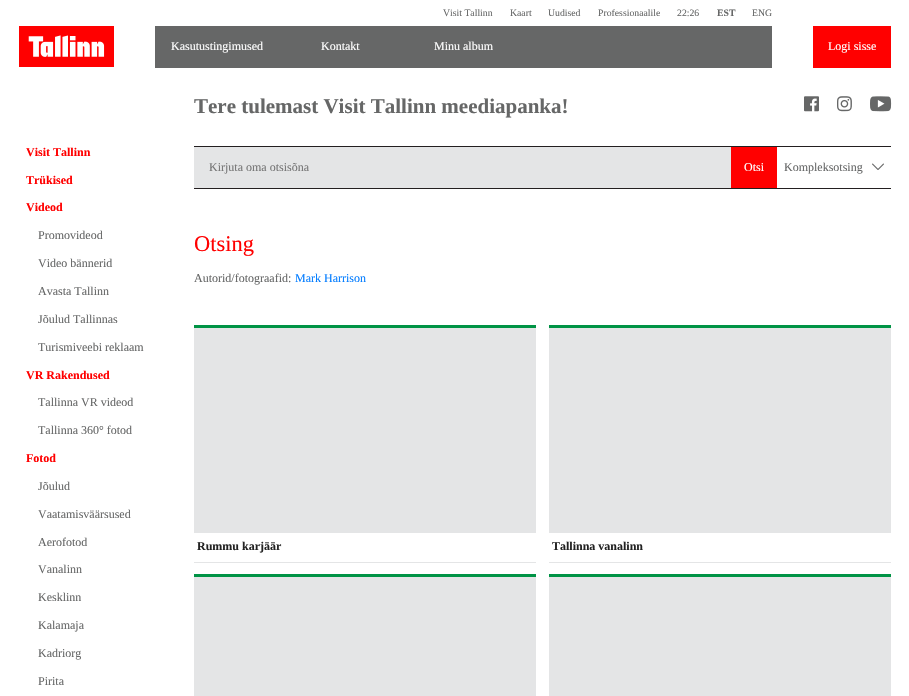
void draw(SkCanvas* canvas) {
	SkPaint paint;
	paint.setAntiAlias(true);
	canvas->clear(0xffffffff);
	SkFont f1(fontMgr->matchFamilyStyle("Liberation Serif", SkFontStyle::Normal()), 9.75);
	f1.setSubpixel(true);
	paint.setColor(0xff666767);
	canvas->drawString("Visit Tallinn", 443, 16, f1, paint);
	canvas->drawString("Kaart", 510, 16, f1, paint);
	canvas->drawString("Uudised", 548, 16, f1, paint);
	canvas->drawString("Professionaalile", 598, 16, f1, paint);
	canvas->drawString("22:26", 677, 16, f1, paint);
	SkFont f2(fontMgr->matchFamilyStyle("Liberation Serif", SkFontStyle::Bold()), 9.75);
	f2.setSubpixel(true);
	canvas->drawString("EST", 717, 16, f2, paint);
	canvas->drawString("ENG", 752, 16, f1, paint);
	canvas->drawImageRect(SkImages::DeferredFromEncodedData(SkData::MakeFromFileName("img1.png")), SkRect::MakeXYWH(19, 26, 95, 41), SkSamplingOptions());
	canvas->drawRect(SkRect::MakeXYWH(155, 26, 617, 42), paint);
	SkFont f3(fontMgr->matchFamilyStyle("Liberation Serif", SkFontStyle::Normal()), 12);
	f3.setSubpixel(true);
	paint.setColor(0xffffffff);
	canvas->drawString("Kasutustingimused", 171, 50, f3, paint);
	canvas->drawString("Kontakt", 321, 50, f3, paint);
	canvas->drawString("Minu album", 434, 50, f3, paint);
	paint.setColor(0xffff0000);
	canvas->drawRect(SkRect::MakeXYWH(813, 26, 78, 42), paint);
	paint.setColor(0xffffffff);
	canvas->drawString("Logi sisse", 828, 50, f3, paint);
	SkFont f4(fontMgr->matchFamilyStyle("Liberation Serif", SkFontStyle::Bold()), 12);
	f4.setSubpixel(true);
	paint.setColor(0xffff0000);
	canvas->drawString("Visit Tallinn", 26, 156, f4, paint);
	canvas->drawString("Trükised", 26, 184, f4, paint);
	canvas->drawString("Videod", 26, 211, f4, paint);
	paint.setColor(0xff666767);
	canvas->drawString("Promovideod", 38, 239, f3, paint);
	canvas->drawString("Video bännerid", 38, 267, f3, paint);
	canvas->drawString("Avasta Tallinn", 38, 295, f3, paint);
	canvas->drawString("Jõulud Tallinnas", 38, 323, f3, paint);
	canvas->drawString("Turismiveebi reklaam", 38, 351, f3, paint);
	paint.setColor(0xffff0000);
	canvas->drawString("VR Rakendused", 26, 379, f4, paint);
	paint.setColor(0xff666767);
	canvas->drawString("Tallinna VR videod", 38, 406, f3, paint);
	canvas->drawString("Tallinna 360° fotod", 38, 434, f3, paint);
	paint.setColor(0xffff0000);
	canvas->drawString("Fotod", 26, 462, f4, paint);
	paint.setColor(0xff666767);
	canvas->drawString("Jõulud", 38, 490, f3, paint);
	canvas->drawString("Vaatamisväärsused", 38, 518, f3, paint);
	canvas->drawString("Aerofotod", 38, 546, f3, paint);
	canvas->drawString("Vanalinn", 38, 573, f3, paint);
	canvas->drawString("Kesklinn", 38, 601, f3, paint);
	canvas->drawString("Kalamaja", 38, 629, f3, paint);
	canvas->drawString("Kadriorg", 38, 657, f3, paint);
	canvas->drawString("Pirita", 38, 685, f3, paint);
	SkFont f5(fontMgr->matchFamilyStyle("Liberation Serif", SkFontStyle::Bold()), 21);
	f5.setSubpixel(true);
	canvas->drawString("Tere tulemast Visit Tallinn meediapanka!", 194, 113, f5, paint);
	canvas->drawImageRect(SkImages::DeferredFromEncodedData(SkData::MakeFromFileName("img2.png")), SkRect::MakeXYWH(804, 96, 15, 16), SkSamplingOptions());
	canvas->drawImageRect(SkImages::DeferredFromEncodedData(SkData::MakeFromFileName("img3.png")), SkRect::MakeXYWH(837, 96, 15, 16), SkSamplingOptions());
	canvas->drawImageRect(SkImages::DeferredFromEncodedData(SkData::MakeFromFileName("img4.png")), SkRect::MakeXYWH(870, 96, 22, 16), SkSamplingOptions());
	paint.setColor(0xff231f20);
	canvas->drawRect(SkRect::MakeXYWH(194, 146, 697, 1), paint);
	canvas->drawRect(SkRect::MakeXYWH(194, 188, 697, 1), paint);
	paint.setColor(0xffe4e5e6);
	canvas->drawRect(SkRect::MakeXYWH(194, 147, 537, 41), paint);
	paint.setColor(0xff757575);
	canvas->drawString("Kirjuta oma otsisõna", 209, 171, f3, paint);
	paint.setColor(0xffff0000);
	canvas->drawRect(SkRect::MakeXYWH(731, 147, 46, 41), paint);
	paint.setColor(0xffffffff);
	canvas->drawString("Otsi", 744, 171, f3, paint);
	paint.setColor(0xff666767);
	canvas->drawString("Kompleksotsing", 784, 171, f3, paint);
	canvas->drawImageRect(SkImages::DeferredFromEncodedData(SkData::MakeFromFileName("img5.png")), SkRect::MakeXYWH(872, 163, 12, 7), SkSamplingOptions());
	SkFont f6(fontMgr->matchFamilyStyle("Liberation Serif", SkFontStyle::Normal()), 22.5);
	f6.setSubpixel(true);
	paint.setColor(0xffff0000);
	canvas->drawString("Otsing", 194, 251, f6, paint);
	paint.setColor(0xff666767);
	canvas->drawString("Autorid/fotograafid:", 194, 282, f3, paint);
	paint.setColor(0xff007bff);
	canvas->drawString("Mark Harrison", 295, 282, f3, paint);
	paint.setColor(0xff009345);
	canvas->drawRect(SkRect::MakeXYWH(194, 325, 342, 3), paint);
	paint.setColor(0xffe4e5e6);
	canvas->drawRect(SkRect::MakeXYWH(194, 562, 342, 1), paint);
	canvas->drawRect(SkRect::MakeXYWH(194, 328, 342, 205), paint);
	paint.setColor(0xff222222);
	canvas->drawString("Rummu karjäär", 197, 550, f4, paint);
	paint.setColor(0xff009345);
	canvas->drawRect(SkRect::MakeXYWH(549, 325, 342, 3), paint);
	paint.setColor(0xffe4e5e6);
	canvas->drawRect(SkRect::MakeXYWH(549, 562, 342, 1), paint);
	canvas->drawRect(SkRect::MakeXYWH(549, 328, 342, 205), paint);
	paint.setColor(0xff222222);
	canvas->drawString("Tallinna vanalinn", 552, 550, f4, paint);
	paint.setColor(0xff009345);
	canvas->drawRect(SkRect::MakeXYWH(194, 574, 342, 3), paint);
	paint.setColor(0xffe4e5e6);
	canvas->drawRect(SkRect::MakeXYWH(194, 577, 342, 119), paint);
	paint.setColor(0xff009345);
	canvas->drawRect(SkRect::MakeXYWH(549, 574, 342, 3), paint);
	paint.setColor(0xffe4e5e6);
	canvas->drawRect(SkRect::MakeXYWH(549, 577, 342, 119), paint);
}
